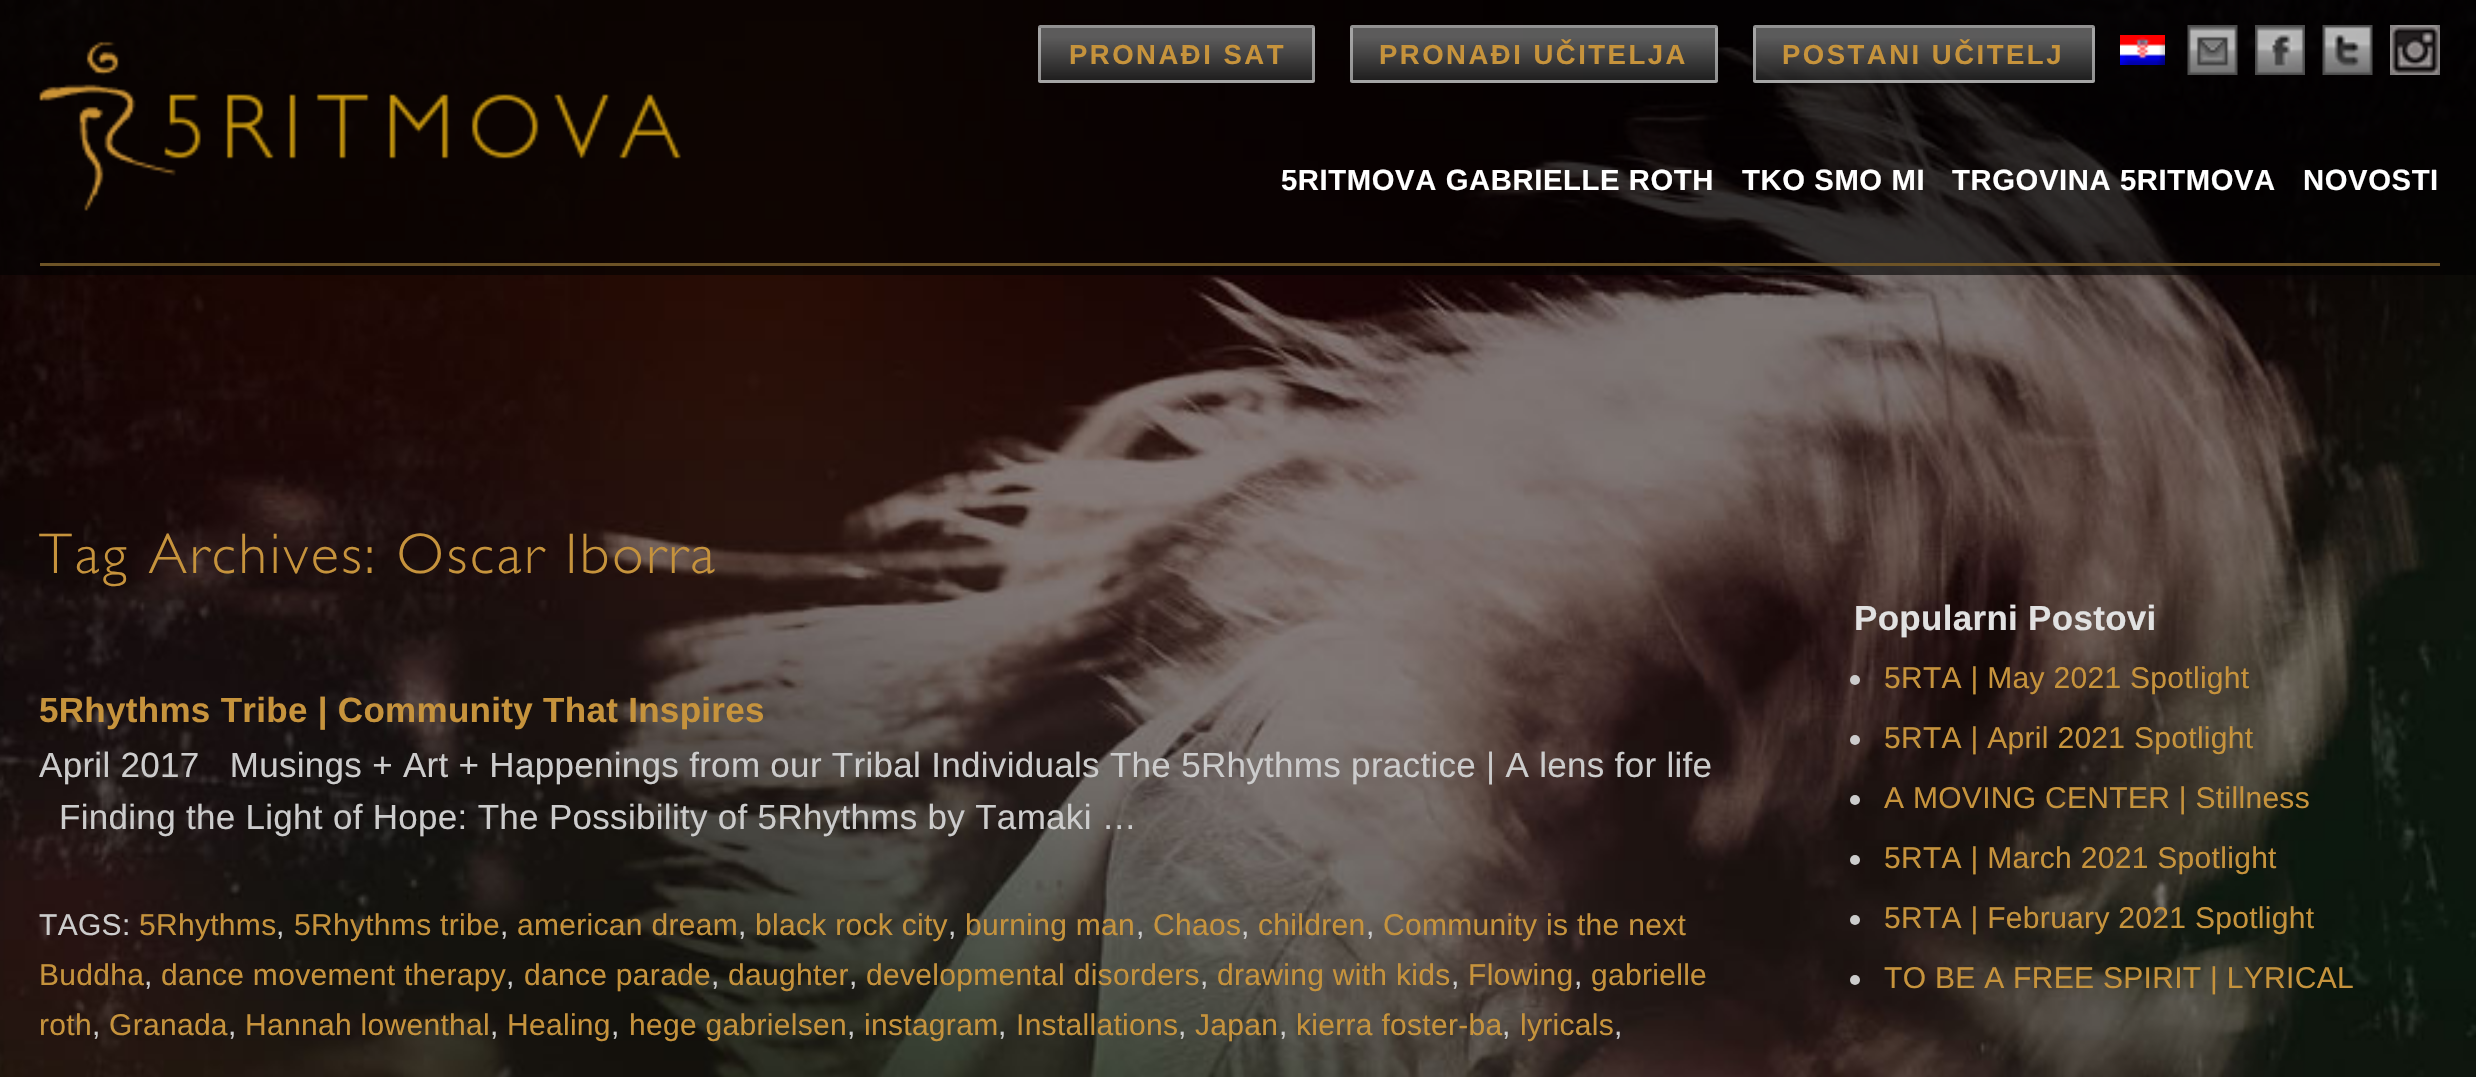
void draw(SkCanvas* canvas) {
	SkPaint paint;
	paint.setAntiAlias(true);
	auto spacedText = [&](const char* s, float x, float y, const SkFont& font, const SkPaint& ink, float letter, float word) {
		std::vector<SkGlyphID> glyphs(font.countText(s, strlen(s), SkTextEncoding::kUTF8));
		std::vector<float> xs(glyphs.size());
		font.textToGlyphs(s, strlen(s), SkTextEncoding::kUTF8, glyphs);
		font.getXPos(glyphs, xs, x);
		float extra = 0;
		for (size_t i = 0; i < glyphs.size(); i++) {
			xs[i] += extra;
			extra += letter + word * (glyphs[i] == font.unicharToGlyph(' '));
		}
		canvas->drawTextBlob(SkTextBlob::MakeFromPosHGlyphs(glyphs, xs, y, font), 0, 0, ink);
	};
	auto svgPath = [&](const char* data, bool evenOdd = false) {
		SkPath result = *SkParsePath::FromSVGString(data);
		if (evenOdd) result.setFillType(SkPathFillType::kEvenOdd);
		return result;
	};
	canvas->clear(0xffffffff);
	canvas->drawImageRect(SkImages::DeferredFromEncodedData(SkData::MakeFromFileName("img1.png")), SkRect::MakeXYWH(0, 0, 2476, 1077), SkSamplingOptions());
	paint.setColor(0x99000000);
	canvas->drawRect(SkRect::MakeXYWH(0, 0, 2476, 275), paint);
	paint.setColor(0xff6d5326);
	canvas->drawRect(SkRect::MakeXYWH(40, 263, 2400, 3), paint);
	canvas->drawImageRect(SkImages::DeferredFromEncodedData(SkData::MakeFromFileName("img2.png")), SkRect::MakeXYWH(39, 41, 642, 170), SkSamplingOptions());
	{
		const SkColor colors[] = {0xcc707070, 0xcc252525};
		const float stops[] = {0.2, 1};
		const SkPoint ends[] = {{1176, -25}, {1176, 28}};
		paint.setShader(SkGradientShader::MakeLinear(ends, colors, stops, 2, SkTileMode::kClamp));
		paint.setAlpha(255);
	}
	canvas->drawPath(svgPath("M1040.5 25H1312.5C1314 25 1315 26 1315 27.5V28H1038V27.5C1038 26 1039 25 1040.5 25Z"), paint);
	{
		const SkColor colors[] = {0xcc707070, 0xcc252525};
		const float stops[] = {0.2, 1};
		const SkPoint ends[] = {{1176, 27}, {1176, 80}};
		paint.setShader(SkGradientShader::MakeLinear(ends, colors, stops, 2, SkTileMode::kClamp));
		paint.setAlpha(255);
	}
	canvas->drawRect(SkRect::MakeXYWH(1038, 28, 277, 52), paint);
	{
		const SkColor colors[] = {0xcc707070, 0xcc252525};
		const float stops[] = {0.2, 1};
		const SkPoint ends[] = {{1176, 80}, {1176, 133}};
		paint.setShader(SkGradientShader::MakeLinear(ends, colors, stops, 2, SkTileMode::kClamp));
		paint.setAlpha(255);
	}
	canvas->drawPath(svgPath("M1038 80H1315V80.5C1315 82 1314 83 1312.5 83H1040.5C1039 83 1038 82 1038 80.5Z"), paint);
	paint.setStroke(true);
	paint.setStrokeWidth(3);
	paint.setShader(nullptr);
	paint.setColor(0xa6cccccc);
	canvas->drawRoundRect(SkRect::MakeXYWH(1039.5, 26.5, 274, 55), 1, 1, paint);
	SkFont f1(fontMgr->matchFamilyStyle("Liberation Sans", SkFontStyle::Bold()), 27.5);
	f1.setSubpixel(true);
	paint.setStroke(false);
	paint.setColor(0xffc6933c);
	spacedText("PRONAĐI SAT", 1069, 64, f1, paint, 2.5, 0);
	{
		const SkColor colors[] = {0xcc707070, 0xcc252525};
		const float stops[] = {0.2, 1};
		const SkPoint ends[] = {{1534, -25}, {1534, 28}};
		paint.setShader(SkGradientShader::MakeLinear(ends, colors, stops, 2, SkTileMode::kClamp));
		paint.setAlpha(255);
	}
	canvas->drawPath(svgPath("M1352.5 25H1715.5C1717 25 1718 26 1718 27.5V28H1350V27.5C1350 26 1351 25 1352.5 25Z"), paint);
	{
		const SkColor colors[] = {0xcc707070, 0xcc252525};
		const float stops[] = {0.2, 1};
		const SkPoint ends[] = {{1534, 27}, {1534, 80}};
		paint.setShader(SkGradientShader::MakeLinear(ends, colors, stops, 2, SkTileMode::kClamp));
		paint.setAlpha(255);
	}
	canvas->drawRect(SkRect::MakeXYWH(1350, 28, 368, 52), paint);
	{
		const SkColor colors[] = {0xcc707070, 0xcc252525};
		const float stops[] = {0.2, 1};
		const SkPoint ends[] = {{1534, 80}, {1534, 133}};
		paint.setShader(SkGradientShader::MakeLinear(ends, colors, stops, 2, SkTileMode::kClamp));
		paint.setAlpha(255);
	}
	canvas->drawPath(svgPath("M1350 80H1718V80.5C1718 82 1717 83 1715.5 83H1352.5C1351 83 1350 82 1350 80.5Z"), paint);
	paint.setStroke(true);
	paint.setShader(nullptr);
	paint.setColor(0xa6cccccc);
	canvas->drawRoundRect(SkRect::MakeXYWH(1351.5, 26.5, 365, 55), 1, 1, paint);
	paint.setStroke(false);
	paint.setColor(0xffc6933c);
	spacedText("PRONAĐI UČITELJA", 1379, 64, f1, paint, 2.5, 0);
	canvas->save();
	canvas->clipPath(svgPath("M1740 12H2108V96H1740ZM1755.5 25H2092.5C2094 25 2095 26 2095 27.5V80.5C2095 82 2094 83 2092.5 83H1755.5C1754 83 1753 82 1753 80.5V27.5C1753 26 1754 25 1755.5 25Z", true), true);
	paint.setColor(0xb3000000);
	paint.setMaskFilter(SkMaskFilter::MakeBlur(kNormal_SkBlurStyle, 4));
	canvas->drawRoundRect(SkRect::MakeXYWH(1753, 25, 342, 58), 2.5, 2.5, paint);
	paint.setMaskFilter(nullptr);
	canvas->restore();
	{
		const SkColor colors[] = {0xcc707070, 0xcc252525};
		const float stops[] = {0.2, 1};
		const SkPoint ends[] = {{1924, -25}, {1924, 28}};
		paint.setShader(SkGradientShader::MakeLinear(ends, colors, stops, 2, SkTileMode::kClamp));
		paint.setAlpha(255);
	}
	canvas->drawPath(svgPath("M1755.5 25H2092.5C2094 25 2095 26 2095 27.5V28H1753V27.5C1753 26 1754 25 1755.5 25Z"), paint);
	{
		const SkColor colors[] = {0xcc707070, 0xcc252525};
		const float stops[] = {0.2, 1};
		const SkPoint ends[] = {{1924, 27}, {1924, 80}};
		paint.setShader(SkGradientShader::MakeLinear(ends, colors, stops, 2, SkTileMode::kClamp));
		paint.setAlpha(255);
	}
	canvas->drawRect(SkRect::MakeXYWH(1753, 28, 342, 52), paint);
	{
		const SkColor colors[] = {0xcc707070, 0xcc252525};
		const float stops[] = {0.2, 1};
		const SkPoint ends[] = {{1924, 80}, {1924, 133}};
		paint.setShader(SkGradientShader::MakeLinear(ends, colors, stops, 2, SkTileMode::kClamp));
		paint.setAlpha(255);
	}
	canvas->drawPath(svgPath("M1753 80H2095V80.5C2095 82 2094 83 2092.5 83H1755.5C1754 83 1753 82 1753 80.5Z"), paint);
	paint.setStroke(true);
	paint.setShader(nullptr);
	paint.setColor(0xa6cccccc);
	canvas->drawRoundRect(SkRect::MakeXYWH(1754.5, 26.5, 339, 55), 1, 1, paint);
	paint.setStroke(false);
	paint.setColor(0xffc6933c);
	spacedText("POSTANI UČITELJ", 1782, 64, f1, paint, 2.5, 0);
	canvas->drawImageRect(SkImages::DeferredFromEncodedData(SkData::MakeFromFileName("img3.png")), SkRect::MakeXYWH(2120, 35, 45, 30), SkSamplingOptions());
	canvas->drawImageRect(SkImages::DeferredFromEncodedData(SkData::MakeFromFileName("img4.png")), SkRect::MakeXYWH(2187, 25, 51, 50), SkSamplingOptions());
	canvas->drawImageRect(SkImages::DeferredFromEncodedData(SkData::MakeFromFileName("img5.png")), SkRect::MakeXYWH(2255, 25, 50, 50), SkSamplingOptions());
	canvas->drawImageRect(SkImages::DeferredFromEncodedData(SkData::MakeFromFileName("img6.png")), SkRect::MakeXYWH(2322, 25, 51, 50), SkSamplingOptions());
	canvas->drawImageRect(SkImages::DeferredFromEncodedData(SkData::MakeFromFileName("img7.png")), SkRect::MakeXYWH(2390, 25, 50, 50), SkSamplingOptions());
	SkFont f2(fontMgr->matchFamilyStyle("Liberation Sans", SkFontStyle::Bold()), 29.25);
	f2.setSubpixel(true);
	paint.setColor(0xffffffff);
	spacedText("5RITMOVA GABRIELLE ROTH", 1281, 190, f2, paint, 0.6, 0);
	spacedText("TKO SMO MI", 1742, 190, f2, paint, 0.6, 0);
	spacedText("TRGOVINA 5RITMOVA", 1952, 190, f2, paint, 0.6, 0);
	spacedText("NOVOSTI", 2303, 190, f2, paint, 0.6, 0);
	SkFont f3(fontMgr->matchFamilyStyle("Gill Sans", SkFontStyle(300, SkFontStyle::kNormal_Width, SkFontStyle::kUpright_Slant)), 57.5);
	f3.setSubpixel(true);
	paint.setColor(0xffc6933c);
	spacedText("Tag Archives: Oscar Iborra", 39, 573, f3, paint, 2.9, 0);
	SkFont f4(fontMgr->matchFamilyStyle("Liberation Sans", SkFontStyle::Bold()), 35);
	f4.setSubpixel(true);
	spacedText("5Rhythms Tribe | Community That Inspires", 39, 722, f4, paint, 0.3, 0);
	SkFont f5(fontMgr->matchFamilyStyle("Liberation Sans", SkFontStyle::Normal()), 35);
	f5.setSubpixel(true);
	paint.setColor(0xffcccccc);
	spacedText("April 2017   Musings + Art + Happenings from our Tribal Individuals The 5Rhythms practice | A lens for life", 39, 777, f5, paint, 0.3, 0);
	spacedText("Finding the Light of Hope: The Possibility of 5Rhythms by Tamaki …", 59, 829, f5, paint, 0.3, 0);
	SkFont f6(fontMgr->matchFamilyStyle("Liberation Sans", SkFontStyle::Normal()), 30);
	f6.setSubpixel(true);
	spacedText("TAGS:", 39, 935, f6, paint, 0.3, 0);
	paint.setColor(0xffc6933c);
	spacedText("5Rhythms", 139, 935, f6, paint, 0.3, 0);
	paint.setColor(0xffcccccc);
	spacedText(",", 276, 935, f6, paint, 0.3, 0);
	paint.setColor(0xffc6933c);
	spacedText("5Rhythms tribe", 294, 935, f6, paint, 0.3, 0);
	paint.setColor(0xffcccccc);
	spacedText(",", 500, 935, f6, paint, 0.3, 0);
	paint.setColor(0xffc6933c);
	spacedText("american dream", 517, 935, f6, paint, 0.3, 0);
	paint.setColor(0xffcccccc);
	spacedText(",", 738, 935, f6, paint, 0.3, 0);
	paint.setColor(0xffc6933c);
	spacedText("black rock city", 755, 935, f6, paint, 0.3, 0);
	paint.setColor(0xffcccccc);
	spacedText(",", 948, 935, f6, paint, 0.3, 0);
	paint.setColor(0xffc6933c);
	spacedText("burning man", 965, 935, f6, paint, 0.3, 0);
	paint.setColor(0xffcccccc);
	spacedText(",", 1136, 935, f6, paint, 0.3, 0);
	paint.setColor(0xffc6933c);
	spacedText("Chaos", 1153, 935, f6, paint, 0.3, 0);
	paint.setColor(0xffcccccc);
	spacedText(",", 1241, 935, f6, paint, 0.3, 0);
	paint.setColor(0xffc6933c);
	spacedText("children", 1258, 935, f6, paint, 0.3, 0);
	paint.setColor(0xffcccccc);
	spacedText(",", 1366, 935, f6, paint, 0.3, 0);
	paint.setColor(0xffc6933c);
	spacedText("Community is the next", 1383, 935, f6, paint, 0.3, 0);
	spacedText("Buddha", 39, 985, f6, paint, 0.3, 0);
	paint.setColor(0xffcccccc);
	spacedText(",", 144, 985, f6, paint, 0.3, 0);
	paint.setColor(0xffc6933c);
	spacedText("dance movement therapy", 161, 985, f6, paint, 0.3, 0);
	paint.setColor(0xffcccccc);
	spacedText(",", 506, 985, f6, paint, 0.3, 0);
	paint.setColor(0xffc6933c);
	spacedText("dance parade", 524, 985, f6, paint, 0.3, 0);
	paint.setColor(0xffcccccc);
	spacedText(",", 711, 985, f6, paint, 0.3, 0);
	paint.setColor(0xffc6933c);
	spacedText("daughter", 728, 985, f6, paint, 0.3, 0);
	paint.setColor(0xffcccccc);
	spacedText(",", 849, 985, f6, paint, 0.3, 0);
	paint.setColor(0xffc6933c);
	spacedText("developmental disorders", 866, 985, f6, paint, 0.3, 0);
	paint.setColor(0xffcccccc);
	spacedText(",", 1200, 985, f6, paint, 0.3, 0);
	paint.setColor(0xffc6933c);
	spacedText("drawing with kids", 1217, 985, f6, paint, 0.3, 0);
	paint.setColor(0xffcccccc);
	spacedText(",", 1451, 985, f6, paint, 0.3, 0);
	paint.setColor(0xffc6933c);
	spacedText("Flowing", 1468, 985, f6, paint, 0.3, 0);
	paint.setColor(0xffcccccc);
	spacedText(",", 1574, 985, f6, paint, 0.3, 0);
	paint.setColor(0xffc6933c);
	spacedText("gabrielle", 1591, 985, f6, paint, 0.3, 0);
	spacedText("roth", 39, 1035, f6, paint, 0.3, 0);
	paint.setColor(0xffcccccc);
	spacedText(",", 92, 1035, f6, paint, 0.3, 0);
	paint.setColor(0xffc6933c);
	spacedText("Granada", 109, 1035, f6, paint, 0.3, 0);
	paint.setColor(0xffcccccc);
	spacedText(",", 228, 1035, f6, paint, 0.3, 0);
	paint.setColor(0xffc6933c);
	spacedText("Hannah lowenthal", 245, 1035, f6, paint, 0.3, 0);
	paint.setColor(0xffcccccc);
	spacedText(",", 490, 1035, f6, paint, 0.3, 0);
	paint.setColor(0xffc6933c);
	spacedText("Healing", 507, 1035, f6, paint, 0.3, 0);
	paint.setColor(0xffcccccc);
	spacedText(",", 611, 1035, f6, paint, 0.3, 0);
	paint.setColor(0xffc6933c);
	spacedText("hege gabrielsen", 629, 1035, f6, paint, 0.3, 0);
	paint.setColor(0xffcccccc);
	spacedText(",", 847, 1035, f6, paint, 0.3, 0);
	paint.setColor(0xffc6933c);
	spacedText("instagram", 864, 1035, f6, paint, 0.3, 0);
	paint.setColor(0xffcccccc);
	spacedText(",", 998, 1035, f6, paint, 0.3, 0);
	paint.setColor(0xffc6933c);
	spacedText("Installations", 1016, 1035, f6, paint, 0.3, 0);
	paint.setColor(0xffcccccc);
	spacedText(",", 1178, 1035, f6, paint, 0.3, 0);
	paint.setColor(0xffc6933c);
	spacedText("Japan", 1195, 1035, f6, paint, 0.3, 0);
	paint.setColor(0xffcccccc);
	spacedText(",", 1279, 1035, f6, paint, 0.3, 0);
	paint.setColor(0xffc6933c);
	spacedText("kierra foster-ba", 1296, 1035, f6, paint, 0.3, 0);
	paint.setColor(0xffcccccc);
	spacedText(",", 1502, 1035, f6, paint, 0.3, 0);
	paint.setColor(0xffc6933c);
	spacedText("lyricals", 1520, 1035, f6, paint, 0.3, 0);
	paint.setColor(0xffcccccc);
	spacedText(",", 1614, 1035, f6, paint, 0.3, 0);
	paint.setColor(0xffe1e1e1);
	spacedText("Popularni Postovi", 1854, 630, f4, paint, 0.3, 0);
	paint.setColor(0xffcccccc);
	canvas->drawCircle(1855, 680, 5, paint);
	paint.setColor(0xffc6933c);
	spacedText("5RTA | May 2021 Spotlight", 1884, 688, f6, paint, 0.3, 0);
	paint.setColor(0xffcccccc);
	canvas->drawCircle(1855, 740, 5, paint);
	paint.setColor(0xffc6933c);
	spacedText("5RTA | April 2021 Spotlight", 1884, 748, f6, paint, 0.3, 0);
	paint.setColor(0xffcccccc);
	canvas->drawCircle(1855, 800, 5, paint);
	paint.setColor(0xffc6933c);
	spacedText("A MOVING CENTER | Stillness", 1884, 808, f6, paint, 0.3, 0);
	paint.setColor(0xffcccccc);
	canvas->drawCircle(1855, 860, 5, paint);
	paint.setColor(0xffc6933c);
	spacedText("5RTA | March 2021 Spotlight", 1884, 868, f6, paint, 0.3, 0);
	paint.setColor(0xffcccccc);
	canvas->drawCircle(1855, 920, 5, paint);
	paint.setColor(0xffc6933c);
	spacedText("5RTA | February 2021 Spotlight", 1884, 928, f6, paint, 0.3, 0);
	paint.setColor(0xffcccccc);
	canvas->drawCircle(1855, 980, 5, paint);
	paint.setColor(0xffc6933c);
	spacedText("TO BE A FREE SPIRIT | LYRICAL", 1884, 988, f6, paint, 0.3, 0);
}
